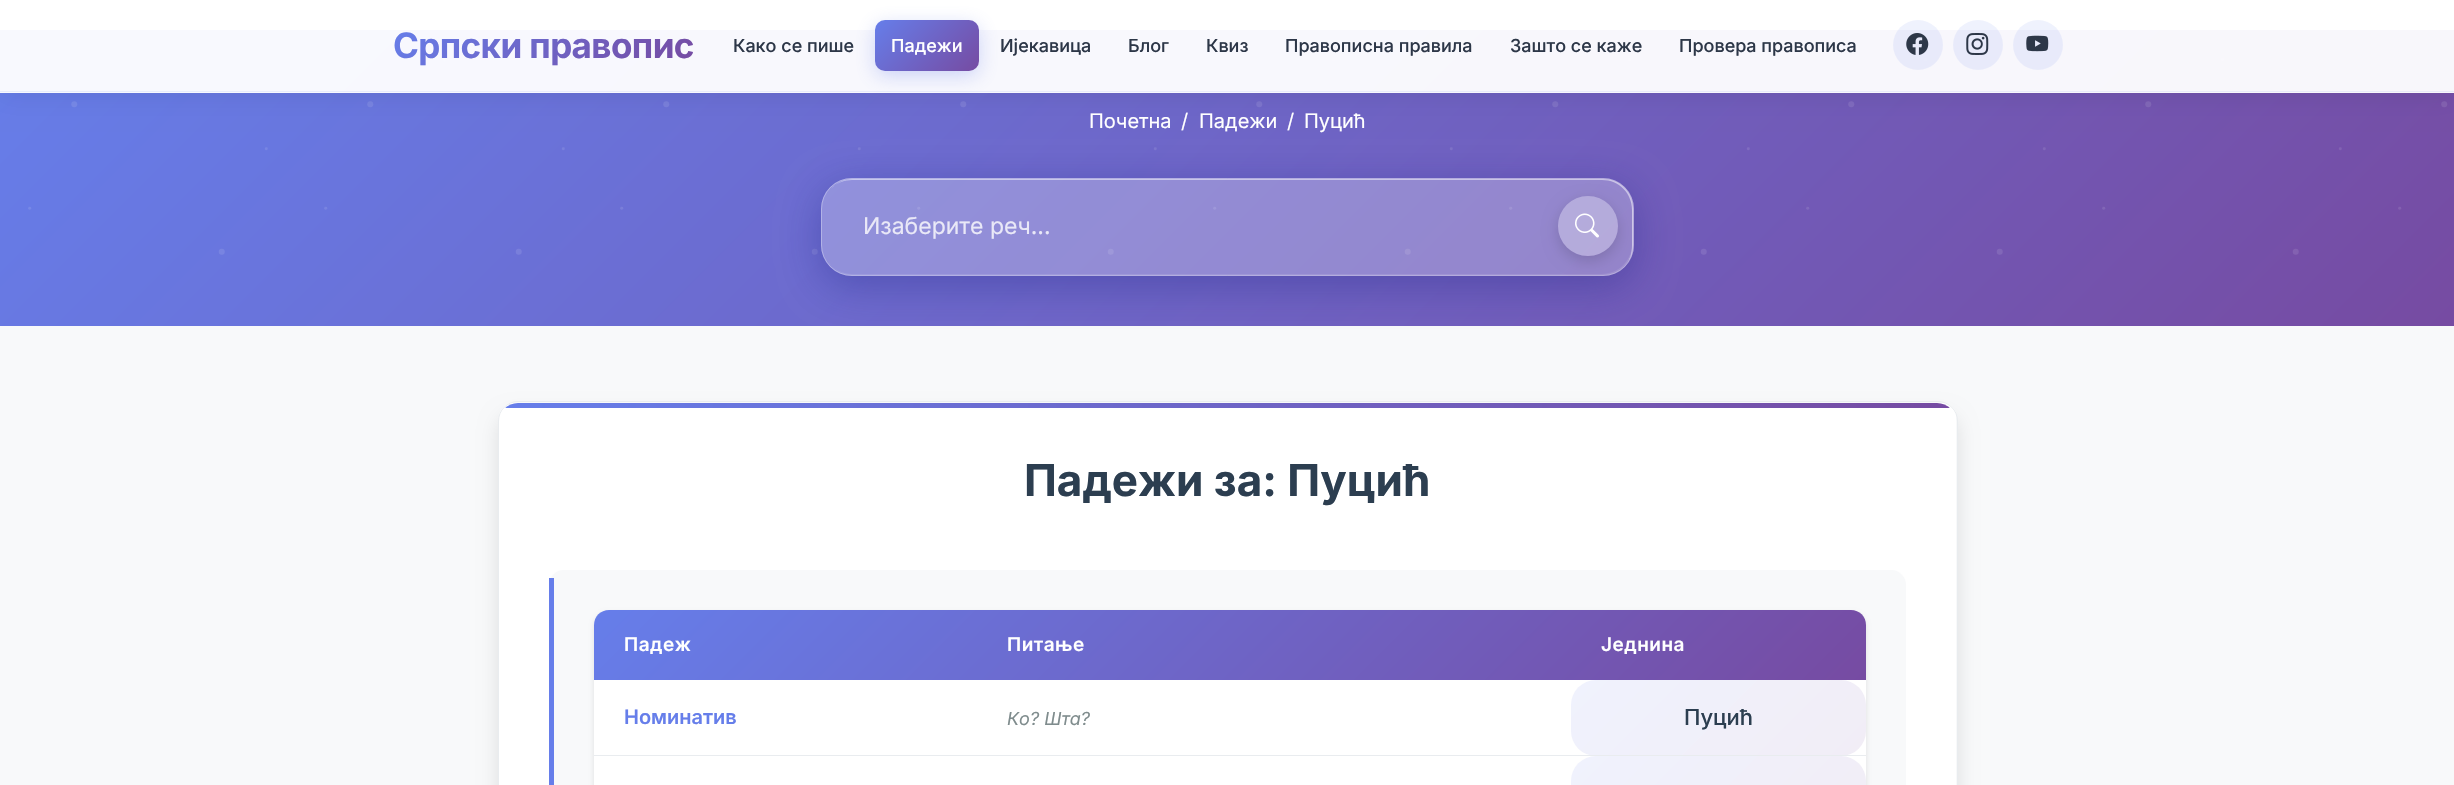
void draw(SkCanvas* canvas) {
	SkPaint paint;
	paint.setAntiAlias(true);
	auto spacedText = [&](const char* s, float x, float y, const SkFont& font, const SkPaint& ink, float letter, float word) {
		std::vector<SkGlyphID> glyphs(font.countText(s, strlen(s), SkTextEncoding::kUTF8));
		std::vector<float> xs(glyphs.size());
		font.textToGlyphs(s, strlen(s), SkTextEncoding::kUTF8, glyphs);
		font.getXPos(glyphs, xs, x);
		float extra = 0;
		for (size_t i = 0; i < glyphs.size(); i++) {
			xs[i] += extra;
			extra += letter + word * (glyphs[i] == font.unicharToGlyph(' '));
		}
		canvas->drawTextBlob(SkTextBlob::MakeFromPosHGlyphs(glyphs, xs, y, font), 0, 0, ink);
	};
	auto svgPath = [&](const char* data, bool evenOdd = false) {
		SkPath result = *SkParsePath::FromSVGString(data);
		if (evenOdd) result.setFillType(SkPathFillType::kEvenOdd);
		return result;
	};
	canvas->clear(0xffffffff);
	{
		const SkColor colors[] = {0xff667eea, 0xff764ba2};
		const float stops[] = {0, 1};
		const SkPoint ends[] = {{540, -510}, {1915, 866}};
		paint.setShader(SkGradientShader::MakeLinear(ends, colors, stops, 2, SkTileMode::kClamp));
		paint.setAlpha(255);
	}
	canvas->drawRect(SkRect::MakeXYWH(0, 30, 2454, 296), paint);
	canvas->drawImageRect(SkImages::DeferredFromEncodedData(SkData::MakeFromFileName("img4.png")), SkRect::MakeXYWH(28, 58, 2420, 197), SkSamplingOptions());
	canvas->save();
	canvas->clipPath(svgPath("M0 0H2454V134H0ZM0 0H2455V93H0Z", true), true);
	paint.setShader(nullptr);
	paint.setColor(0x14000000);
	paint.setMaskFilter(SkMaskFilter::MakeBlur(kNormal_SkBlurStyle, 12.5));
	canvas->drawRect(SkRect::MakeXYWH(0, 3, 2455, 92), paint);
	paint.setMaskFilter(nullptr);
	canvas->restore();
	paint.setColor(0xf2ffffff);
	canvas->drawRect(SkRect::MakeXYWH(0, 30, 2454, 63), paint);
	paint.setColor(0x1a667eea);
	canvas->drawRect(SkRect::MakeXYWH(0, 91, 2454, 1), paint);
	SkFont f1(fontMgr->matchFamilyStyle("Inter", SkFontStyle::Bold()), 35);
	f1.setSubpixel(true);
	{
		const SkColor colors[] = {0xff667eea, 0xff764ba2};
		const float stops[] = {0, 1};
		const SkPoint ends[] = {{459, -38}, {627, 129}};
		paint.setShader(SkGradientShader::MakeLinear(ends, colors, stops, 2, SkTileMode::kClamp));
		paint.setAlpha(255);
	}
	spacedText("Српски правопис", 393, 58, f1, paint, -0.6, 0);
	SkFont f2(fontMgr->matchFamilyStyle("Inter", SkFontStyle(500, SkFontStyle::kNormal_Width, SkFontStyle::kUpright_Slant)), 18);
	f2.setSubpixel(true);
	paint.setShader(nullptr);
	paint.setColor(0xff2d3748);
	canvas->drawString("Како се пише", 733, 52, f2, paint);
	paint.setColor(0x4d667eea);
	paint.setMaskFilter(SkMaskFilter::MakeBlur(kNormal_SkBlurStyle, 9.5));
	canvas->drawRoundRect(SkRect::MakeXYWH(875, 25, 104, 51), 10, 10, paint);
	paint.setMaskFilter(nullptr);
	{
		const SkColor colors[] = {0xff667eea, 0xff764ba2};
		const float stops[] = {0, 1};
		const SkPoint ends[] = {{888, 6.9}, {966, 84}};
		paint.setShader(SkGradientShader::MakeLinear(ends, colors, stops, 2, SkTileMode::kClamp));
		paint.setAlpha(255);
	}
	canvas->drawRoundRect(SkRect::MakeXYWH(875, 20, 104, 51), 10, 10, paint);
	paint.setShader(nullptr);
	paint.setColor(0xffffffff);
	canvas->drawString("Падежи", 891, 52, f2, paint);
	paint.setColor(0xff2d3748);
	canvas->drawString("Ијекавица", 1000, 52, f2, paint);
	canvas->drawString("Блог", 1128, 52, f2, paint);
	canvas->drawString("Квиз", 1206, 52, f2, paint);
	canvas->drawString("Правописна правила", 1285, 52, f2, paint);
	canvas->drawString("Зашто се каже", 1510, 52, f2, paint);
	canvas->drawString("Провера правописа", 1679, 52, f2, paint);
	paint.setColor(0x1a667eea);
	canvas->drawCircle(1918, 45, 25, paint);
	canvas->drawImageRect(SkImages::DeferredFromEncodedData(SkData::MakeFromFileName("img1.png")), SkRect::MakeXYWH(1906, 33, 23, 22), SkSamplingOptions());
	canvas->drawCircle(1978, 45, 25, paint);
	canvas->drawImageRect(SkImages::DeferredFromEncodedData(SkData::MakeFromFileName("img2.png")), SkRect::MakeXYWH(1966, 33, 23, 22), SkSamplingOptions());
	canvas->drawCircle(2038, 45, 25, paint);
	canvas->drawImageRect(SkImages::DeferredFromEncodedData(SkData::MakeFromFileName("img3.png")), SkRect::MakeXYWH(2026, 35, 23, 17), SkSamplingOptions());
	paint.setColor(0xfff8f9fa);
	canvas->drawRect(SkRect::MakeXYWH(0, 326, 2454, 459), paint);
	SkFont f3(fontMgr->matchFamilyStyle("Inter", SkFontStyle::Normal()), 20);
	f3.setSubpixel(true);
	paint.setColor(0xffffffff);
	canvas->drawString("Почетна", 1089, 128, f3, paint);
	canvas->drawString("/", 1181, 128, f3, paint);
	canvas->drawString("Падежи", 1199, 128, f3, paint);
	canvas->drawString("/", 1287, 128, f3, paint);
	canvas->drawString("Пуцић", 1304, 128, f3, paint);
	canvas->save();
	canvas->clipPath(svgPath("M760 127H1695V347H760ZM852 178H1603C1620 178 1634 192 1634 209V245C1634 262 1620 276 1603 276H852C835 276 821 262 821 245V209C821 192 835 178 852 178Z", true), true);
	paint.setColor(0x5e1f2687);
	paint.setMaskFilter(SkMaskFilter::MakeBlur(kNormal_SkBlurStyle, 20));
	canvas->drawRoundRect(SkRect::MakeXYWH(821, 188, 813, 98), 31, 31, paint);
	paint.setMaskFilter(nullptr);
	canvas->restore();
	paint.setColor(0x40ffffff);
	canvas->drawRoundRect(SkRect::MakeXYWH(821, 178, 813, 98), 31, 31, paint);
	paint.setColor(0x1affffff);
	canvas->drawPath(svgPath("M828 261C833 269 842 275 853 275H1603C1620 275 1633 262 1633 245V209C1633 202 1631 196 1627 191C1630 195 1632 201 1632 208V244C1632 260 1619 274 1602 274H852C842 274 833 269 828 261Z"), paint);
	paint.setColor(0x80ffffff);
	canvas->drawPath(svgPath("M852 180H1602C1619 180 1632 193 1632 210V246C1632 253 1630 259 1627 263C1631 258 1633 252 1633 245V209C1633 192 1620 179 1603 179H853C844 179 836 183 831 189C836 183 844 180 852 180Z"), paint);
	paint.setStroke(true);
	paint.setStrokeWidth(1);
	paint.setColor(0x4dffffff);
	canvas->drawRoundRect(SkRect::MakeXYWH(821.5, 178.5, 812, 97), 30.5, 30.5, paint);
	SkFont f4(fontMgr->matchFamilyStyle("Inter", SkFontStyle::Normal()), 23);
	f4.setSubpixel(true);
	paint.setStroke(false);
	paint.setColor(0xffe9e8f7);
	canvas->drawString("Изаберите реч...", 863, 234, f4, paint);
	canvas->save();
	canvas->clipPath(svgPath("M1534 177H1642V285H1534ZM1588 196C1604.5 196 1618 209.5 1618 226C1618 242.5 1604.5 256 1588 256C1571.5 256 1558 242.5 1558 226C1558 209.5 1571.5 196 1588 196Z", true), true);
	paint.setColor(0x26000000);
	paint.setMaskFilter(SkMaskFilter::MakeBlur(kNormal_SkBlurStyle, 7.5));
	canvas->drawRoundRect(SkRect::MakeXYWH(1558, 201, 60, 60), 30, 30, paint);
	paint.setMaskFilter(nullptr);
	canvas->restore();
	paint.setColor(0x4dffffff);
	canvas->drawCircle(1588, 226, 30, paint);
	canvas->drawImageRect(SkImages::DeferredFromEncodedData(SkData::MakeFromFileName("img5.png")), SkRect::MakeXYWH(1575, 213, 24, 25), SkSamplingOptions());
	canvas->save();
	canvas->clipPath(svgPath("M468 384H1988V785H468ZM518 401H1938C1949 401 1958 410 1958 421V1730C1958 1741 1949 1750 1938 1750H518C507 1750 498 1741 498 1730V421C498 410 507 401 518 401Z", true), true);
	paint.setColor(0x1a000000);
	paint.setMaskFilter(SkMaskFilter::MakeBlur(kNormal_SkBlurStyle, 9.5));
	canvas->drawRoundRect(SkRect::MakeXYWH(498, 414, 1460, 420), 20, 20, paint);
	paint.setMaskFilter(nullptr);
	canvas->restore();
	canvas->save();
	canvas->clipPath(svgPath("M518 401H1938C1949 401 1958 410 1958 421V1730C1958 1741 1949 1750 1938 1750H518C507 1750 498 1741 498 1730V421C498 410 507 401 518 401Z"), true);
	{
		const SkColor colors[] = {0xf2ffffff, 0xfaffffff};
		const float stops[] = {0, 1};
		const SkPoint ends[] = {{527, 375}, {1928, 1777}};
		paint.setShader(SkGradientShader::MakeLinear(ends, colors, stops, 2, SkTileMode::kClamp));
		paint.setAlpha(255);
	}
	canvas->drawRect(SkRect::MakeXYWH(499, 403, 1457, 382), paint);
	canvas->restore();
	paint.setStroke(true);
	paint.setShader(nullptr);
	paint.setColor(0xffe9ecef);
	canvas->drawRoundRect(SkRect::MakeXYWH(498.5, 401.5, 1459, 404), 19.5, 19.5, paint);
	canvas->save();
	canvas->clipPath(svgPath("M518 403H1937C1947.5 403 1956 411.5 1956 422V1730C1956 1740.5 1947.5 1749 1937 1749H518C507.5 1749 499 1740.5 499 1730V422C499 411.5 507.5 403 518 403Z"), true);
	paint.setStroke(false);
	{
		const SkColor colors[] = {0xff667eea, 0xff764ba2, 0xff667eea};
		const float stops[] = {0, 0.5, 1};
		const SkPoint ends[] = {{499, 408}, {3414, 407}};
		paint.setShader(SkGradientShader::MakeLinear(ends, colors, stops, 3, SkTileMode::kClamp));
		paint.setAlpha(255);
	}
	canvas->drawRect(SkRect::MakeXYWH(499, 403, 1457, 5), paint);
	canvas->restore();
	SkFont f5(fontMgr->matchFamilyStyle("Inter", SkFontStyle::Bold()), 44);
	f5.setSubpixel(true);
	paint.setShader(nullptr);
	paint.setColor(0xff2c3e50);
	canvas->drawString("Падежи за: Пуцић", 1024, 496, f5, paint);
	paint.setColor(0xfff8f9fa);
	canvas->drawRoundRect(SkRect::MakeXYWH(549, 570, 1357, 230), 15, 15, paint);
	paint.setColor(0xff667eea);
	canvas->drawRect(SkRect::MakeXYWH(549, 578, 5, 207), paint);
	paint.setColor(0x1a000000);
	paint.setMaskFilter(SkMaskFilter::MakeBlur(kNormal_SkBlurStyle, 2.5));
	canvas->drawRoundRect(SkRect::MakeXYWH(594, 613, 1272, 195), 15, 15, paint);
	paint.setMaskFilter(nullptr);
	paint.setColor(0xffffffff);
	canvas->drawRoundRect(SkRect::MakeXYWH(594, 610, 1272, 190), 15, 15, paint);
	{
		const SkColor colors[] = {0xff667eea, 0xff764ba2};
		const float stops[] = {0, 1};
		const SkPoint ends[] = {{894, 309}, {1566, 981}};
		paint.setShader(SkGradientShader::MakeLinear(ends, colors, stops, 2, SkTileMode::kClamp));
		paint.setAlpha(255);
	}
	canvas->drawPath(svgPath("M609 610H1851C1859.5 610 1866 616.5 1866 625V680H594V625C594 616.5 600.5 610 609 610Z"), paint);
	SkFont f6(fontMgr->matchFamilyStyle("Inter", SkFontStyle(600, SkFontStyle::kNormal_Width, SkFontStyle::kUpright_Slant)), 19);
	f6.setSubpixel(true);
	paint.setShader(nullptr);
	paint.setColor(0xffffffff);
	spacedText("Падеж", 624, 651, f6, paint, 0.5, 0);
	spacedText("Питање", 1007, 651, f6, paint, 0.5, 0);
	spacedText("Једнина", 1601, 651, f6, paint, 0.5, 0);
	{
		const SkColor colors[] = {0xfff0f2fd, 0xfff1edf6};
		const float stops[] = {0, 1};
		const SkPoint ends[] = {{1626, 625}, {1812, 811}};
		paint.setShader(SkGradientShader::MakeLinear(ends, colors, stops, 2, SkTileMode::kClamp));
		paint.setAlpha(255);
	}
	canvas->drawRoundRect(SkRect::MakeXYWH(1571, 680, 295, 76), 25, 25, paint);
	paint.setShader(nullptr);
	paint.setColor(0xffe9ecef);
	canvas->drawRect(SkRect::MakeXYWH(594, 755, 1272, 1), paint);
	SkFont f7(fontMgr->matchFamilyStyle("Inter", SkFontStyle(600, SkFontStyle::kNormal_Width, SkFontStyle::kUpright_Slant)), 20);
	f7.setSubpixel(true);
	paint.setColor(0xff667eea);
	canvas->drawString("Номинатив", 624, 724, f7, paint);
	SkFont f8(fontMgr->matchFamilyStyle("Inter", SkFontStyle::Italic()), 18);
	f8.setSubpixel(true);
	paint.setColor(0xff7f8c8d);
	canvas->drawString("Ко? Шта?", 1007, 725, f8, paint);
	SkFont f9(fontMgr->matchFamilyStyle("Inter", SkFontStyle(500, SkFontStyle::kNormal_Width, SkFontStyle::kUpright_Slant)), 22);
	f9.setSubpixel(true);
	paint.setColor(0xff2c3e50);
	canvas->drawString("Пуцић", 1684, 725, f9, paint);
	{
		const SkColor colors[] = {0xfff0f2fd, 0xfff1edf6};
		const float stops[] = {0, 1};
		const SkPoint ends[] = {{1626, 702}, {1812, 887}};
		paint.setShader(SkGradientShader::MakeLinear(ends, colors, stops, 2, SkTileMode::kClamp));
		paint.setAlpha(255);
	}
	canvas->drawRoundRect(SkRect::MakeXYWH(1571, 756, 295, 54), 25, 25, paint);
}
